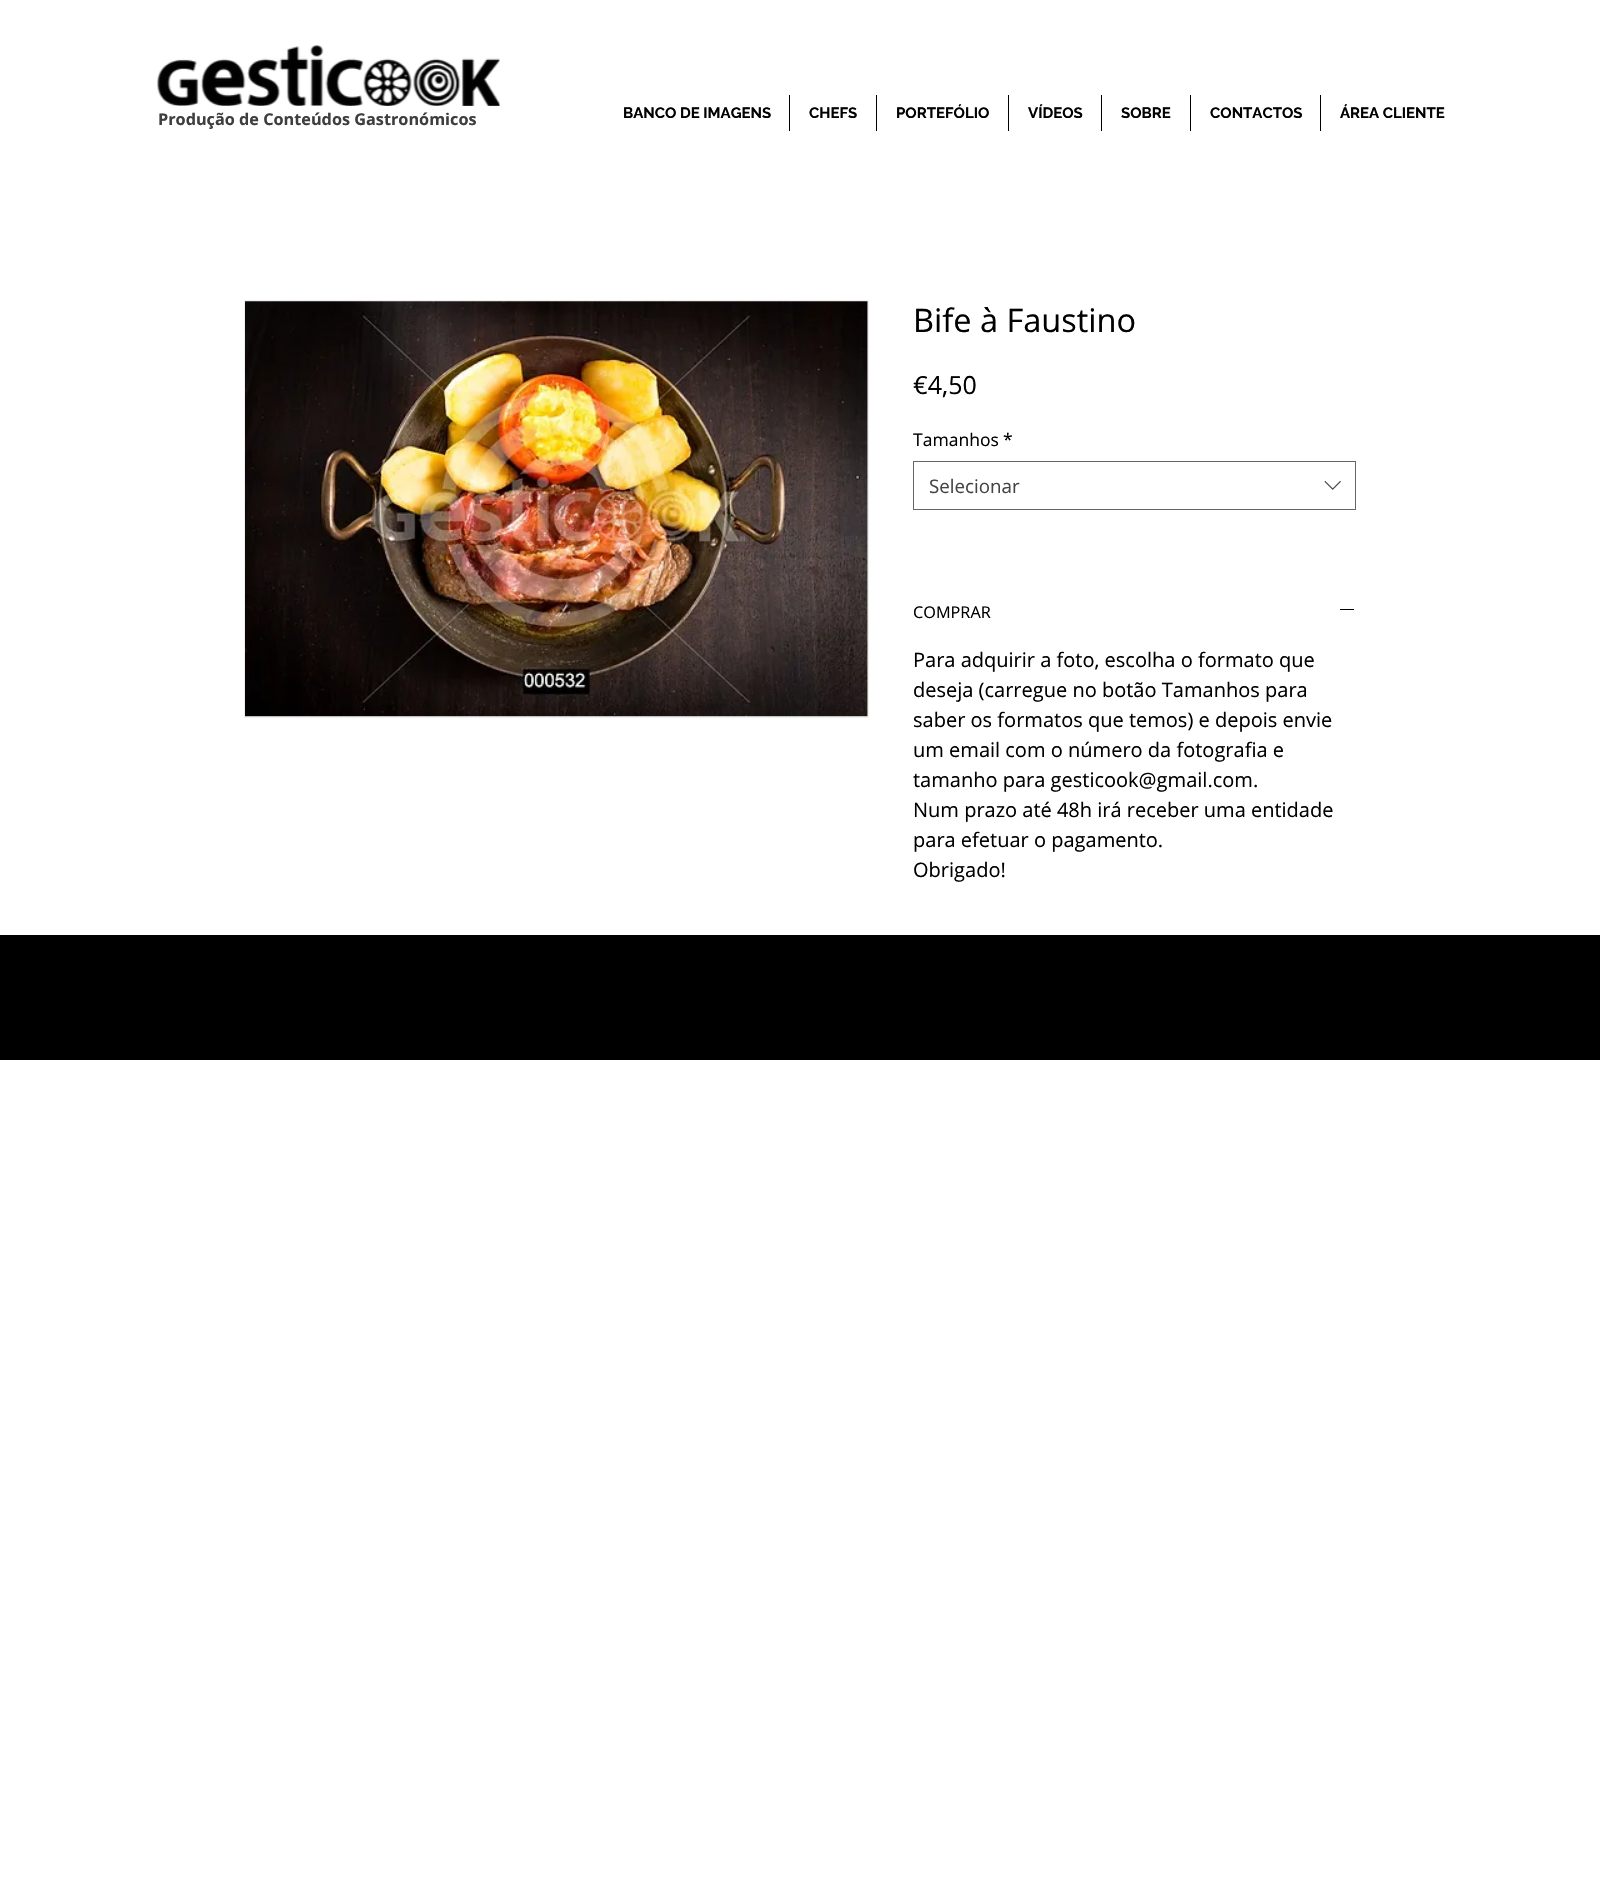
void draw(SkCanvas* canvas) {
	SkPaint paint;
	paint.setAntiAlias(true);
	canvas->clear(0xffffffff);
	canvas->drawImageRect(SkImages::DeferredFromEncodedData(SkData::MakeFromFileName("img1.png")), SkRect::MakeXYWH(157, 45, 343, 61), SkSamplingOptions());
	SkFont f1(fontMgr->matchFamilyStyle("Open Sans", SkFontStyle::Bold()), 16.25);
	f1.setSubpixel(true);
	paint.setColor(0xff3e3e3e);
	canvas->drawString("Produção de Conteúdos Gastronómicos", 158, 125, f1, paint);
	SkFont f2(fontMgr->matchFamilyStyle("Raleway", SkFontStyle::Bold()), 15);
	f2.setSubpixel(true);
	paint.setColor(0xff000000);
	canvas->drawString("BANCO DE IMAGENS", 623, 118, f2, paint);
	canvas->drawRect(SkRect::MakeXYWH(789, 95, 1, 36), paint);
	canvas->drawString("CHEFS", 809, 118, f2, paint);
	canvas->drawRect(SkRect::MakeXYWH(876, 95, 1, 36), paint);
	canvas->drawString("PORTEFÓLIO", 896, 118, f2, paint);
	canvas->drawRect(SkRect::MakeXYWH(1008, 95, 1, 36), paint);
	canvas->drawString("VÍDEOS", 1028, 118, f2, paint);
	canvas->drawRect(SkRect::MakeXYWH(1101, 95, 1, 36), paint);
	canvas->drawString("SOBRE", 1121, 118, f2, paint);
	canvas->drawRect(SkRect::MakeXYWH(1190, 95, 1, 36), paint);
	canvas->drawString("CONTACTOS", 1210, 118, f2, paint);
	canvas->drawRect(SkRect::MakeXYWH(1320, 95, 1, 36), paint);
	canvas->drawString("ÁREA CLIENTE", 1340, 118, f2, paint);
	paint.setStroke(true);
	paint.setStrokeWidth(1);
	paint.setColor(0xffefefef);
	canvas->drawRect(SkRect::MakeXYWH(244.5, 300.5, 624, 417), paint);
	canvas->drawImageRect(SkImages::DeferredFromEncodedData(SkData::MakeFromFileName("img2.png")), SkRect::MakeXYWH(245, 301, 623, 416), SkSamplingOptions());
	SkFont f3(fontMgr->matchFamilyStyle("Open Sans", SkFontStyle::Normal()), 32.5);
	f3.setSubpixel(true);
	paint.setStroke(false);
	paint.setColor(0xff000000);
	canvas->drawString("Bife à Faustino", 913, 332, f3, paint);
	SkFont f4(fontMgr->matchFamilyStyle("Open Sans", SkFontStyle::Normal()), 25);
	f4.setSubpixel(true);
	canvas->drawString("€4,50", 913, 394, f4, paint);
	SkFont f5(fontMgr->matchFamilyStyle("Open Sans", SkFontStyle::Normal()), 17.5);
	f5.setSubpixel(true);
	canvas->drawString("Tamanhos", 913, 446, f5, paint);
	canvas->drawString("*", 1003, 446, f5, paint);
	paint.setStroke(true);
	paint.setColor(0xff666666);
	canvas->drawRect(SkRect::MakeXYWH(913.5, 461.5, 442, 48), paint);
	SkFont f6(fontMgr->matchFamilyStyle("Open Sans", SkFontStyle::Normal()), 18.75);
	f6.setSubpixel(true);
	paint.setStroke(false);
	paint.setColor(0xff444444);
	canvas->drawString("Selecionar", 929, 493, f6, paint);
	canvas->drawImageRect(SkImages::DeferredFromEncodedData(SkData::MakeFromFileName("img3.png")), SkRect::MakeXYWH(1324, 480, 17, 10), SkSamplingOptions());
	SkFont f7(fontMgr->matchFamilyStyle("Open Sans", SkFontStyle::Normal()), 16.25);
	f7.setSubpixel(true);
	paint.setColor(0xff000000);
	canvas->drawString("COMPRAR", 913, 618, f7, paint);
	canvas->drawRect(SkRect::MakeXYWH(1340, 609, 14, 1), paint);
	SkFont f8(fontMgr->matchFamilyStyle("Open Sans", SkFontStyle::Normal()), 20);
	f8.setSubpixel(true);
	canvas->drawString("Para adquirir a foto, escolha o formato que", 913, 667, f8, paint);
	canvas->drawString("deseja (carregue no botão Tamanhos para", 913, 697, f8, paint);
	canvas->drawString("saber os formatos que temos) e depois envie", 913, 727, f8, paint);
	canvas->drawString("um email com o número da fotografia e", 913, 757, f8, paint);
	canvas->drawString("tamanho para gesticook@gmail.com.", 913, 787, f8, paint);
	canvas->drawString("Num prazo até 48h irá receber uma entidade", 913, 817, f8, paint);
	canvas->drawString("para efetuar o pagamento.", 913, 847, f8, paint);
	canvas->drawString("Obrigado!", 913, 877, f8, paint);
	canvas->drawRect(SkRect::MakeXYWH(0, 935, 1600, 125), paint);
}
